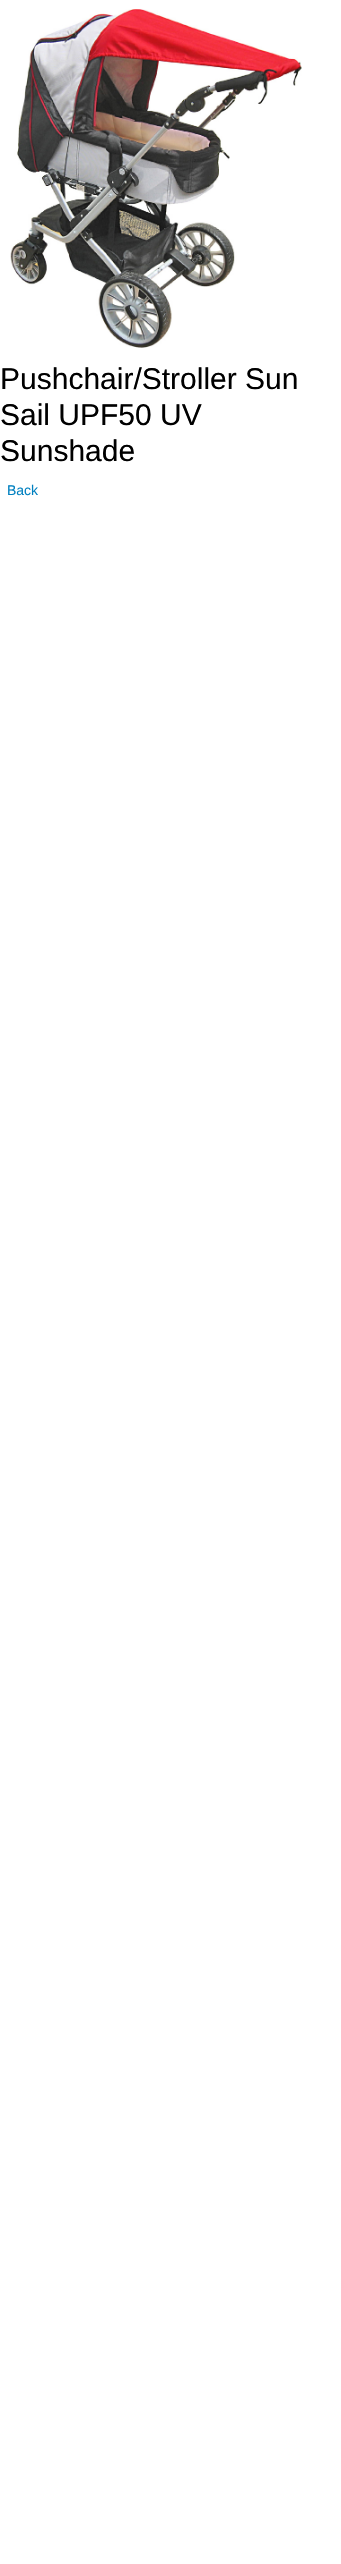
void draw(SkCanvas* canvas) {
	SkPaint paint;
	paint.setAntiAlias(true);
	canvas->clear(0xffffffff);
	canvas->drawImageRect(SkImages::DeferredFromEncodedData(SkData::MakeFromFileName("img1.png")), SkRect::MakeXYWH(10, 9, 292, 339), SkSamplingOptions());
	SkFont f1(fontMgr->matchFamilyStyle("Liberation Sans", SkFontStyle::Normal()), 30);
	f1.setSubpixel(true);
	paint.setColor(0xff000000);
	canvas->drawString("Pushchair/Stroller Sun", 0, 389, f1, paint);
	canvas->drawString("Sail UPF50 UV", 0, 425, f1, paint);
	canvas->drawString("Sunshade", 0, 461, f1, paint);
	SkFont f2(fontMgr->matchFamilyStyle("Liberation Sans", SkFontStyle::Normal()), 14);
	f2.setSubpixel(true);
	paint.setColor(0xff0080c0);
	canvas->drawString("Back", 7, 495, f2, paint);
}
